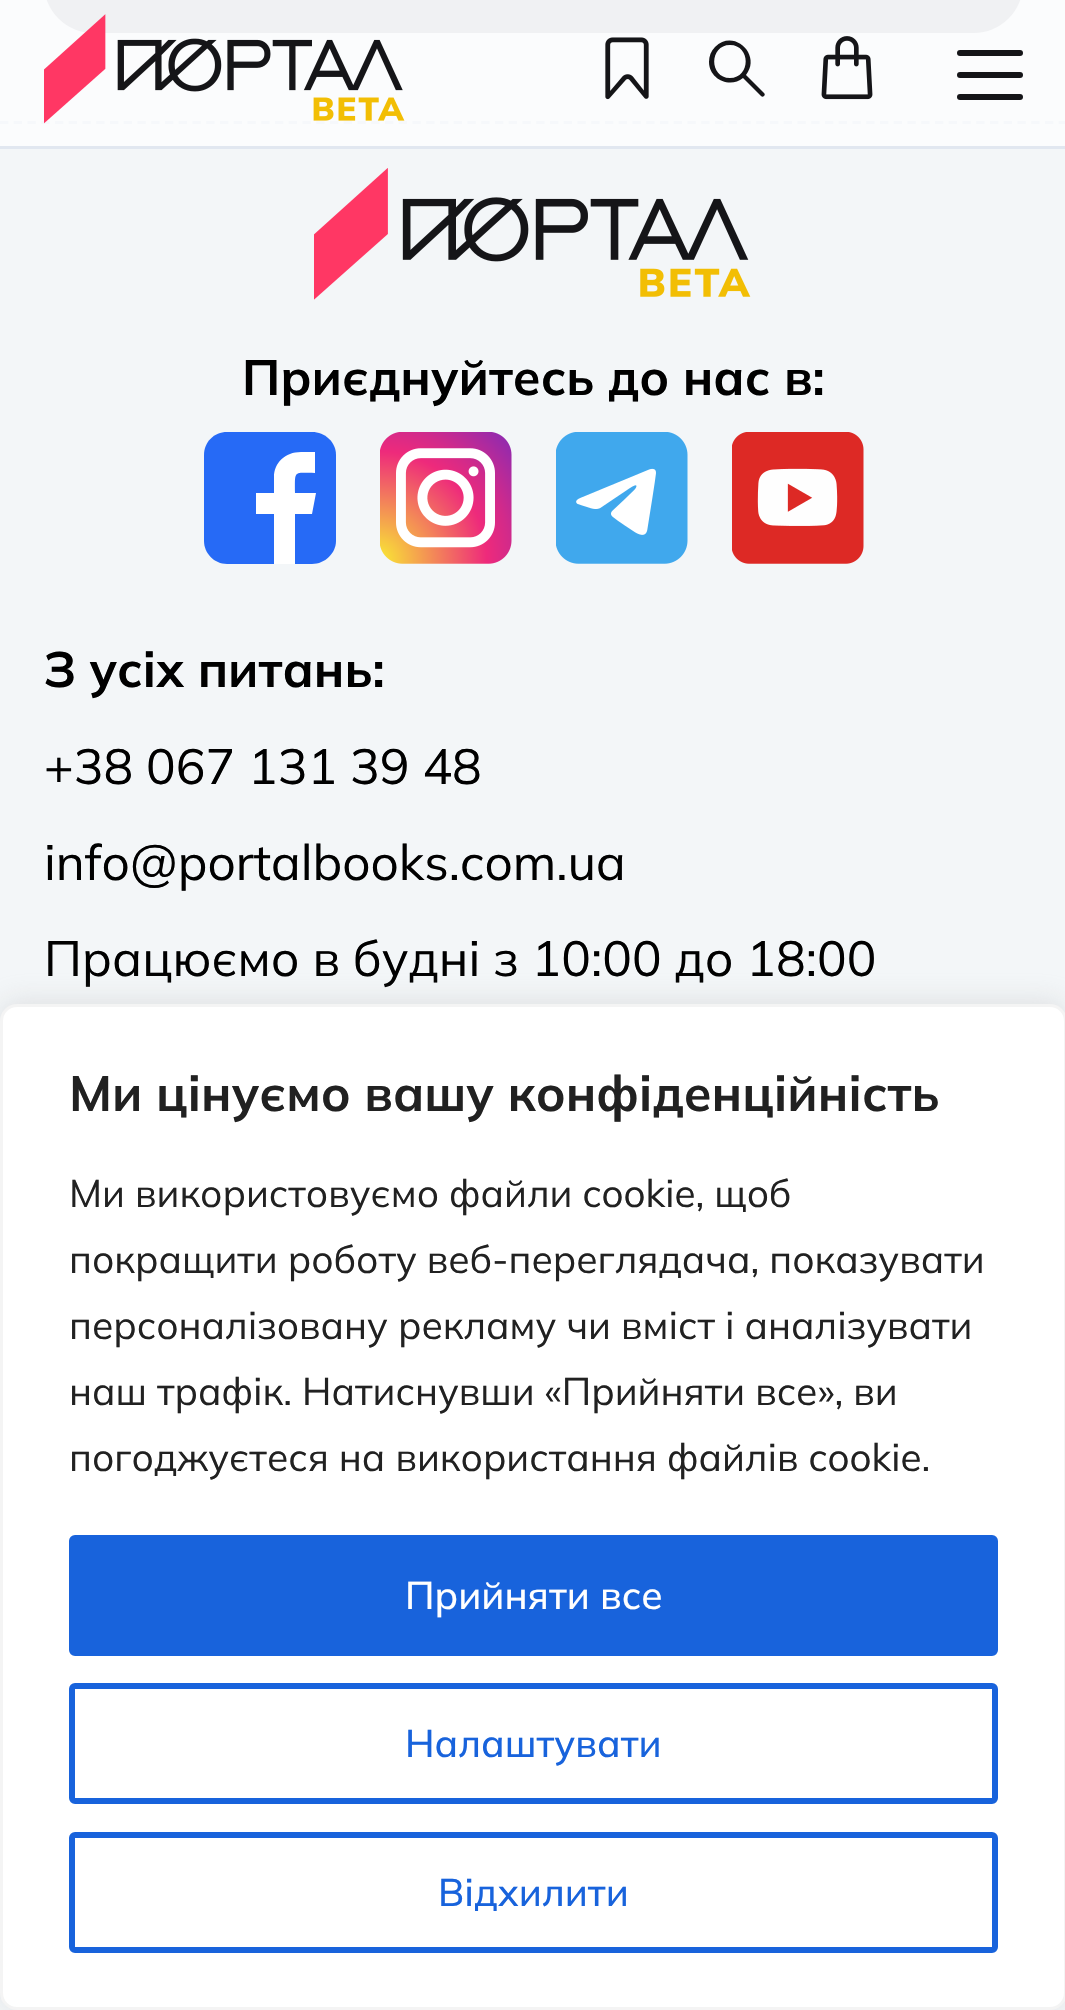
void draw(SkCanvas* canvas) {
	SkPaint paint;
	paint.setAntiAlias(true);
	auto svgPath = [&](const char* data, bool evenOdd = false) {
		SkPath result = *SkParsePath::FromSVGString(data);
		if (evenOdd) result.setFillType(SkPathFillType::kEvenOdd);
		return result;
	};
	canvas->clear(0xfffbfcfd);
	paint.setColor(0xfff0f1f3);
	canvas->drawRoundRect(SkRect::MakeXYWH(44, -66, 979, 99), 66, 66, paint);
	paint.setColor(0xffe1e7f0);
	canvas->drawRect(SkRect::MakeXYWH(0, 146, 1065, 3), paint);
	paint.setStroke(true);
	paint.setStrokeWidth(2.8);
	paint.setColor(0xfff6f8fb);
	paint.setPathEffect(SkDashPathEffect::Make({{8.25f, 5.5f}}, 0));
	canvas->drawPath(svgPath("M0 122.5H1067"), paint);
	paint.setPathEffect(nullptr);
	canvas->drawImageRect(SkImages::DeferredFromEncodedData(SkData::MakeFromFileName("img1.png")), SkRect::MakeXYWH(44, 14, 361, 110), SkSamplingOptions());
	canvas->drawImageRect(SkImages::DeferredFromEncodedData(SkData::MakeFromFileName("img2.png")), SkRect::MakeXYWH(605, 37, 44, 63), SkSamplingOptions());
	paint.setStroke(false);
	paint.setColor(0xff151518);
	canvas->drawPath(svgPath("M730 45C709 45 709 78 730 78C751 78 751 45 730 45ZM709 62C709 56 711 51 715 47C734 28 762 55 746 75L764 93C765 94 765 95 764 96C763 97 762 97 761 96L743 78C730 89 709 79 709 62Z", true), paint);
	canvas->drawImageRect(SkImages::DeferredFromEncodedData(SkData::MakeFromFileName("img3.png")), SkRect::MakeXYWH(821, 36, 52, 64), SkSamplingOptions());
	canvas->drawRoundRect(SkRect::MakeXYWH(957, 50, 66, 6), 3, 3, paint);
	canvas->drawRoundRect(SkRect::MakeXYWH(957, 72, 66, 6), 3, 3, paint);
	canvas->drawRoundRect(SkRect::MakeXYWH(957, 94, 66, 6), 3, 3, paint);
	paint.setColor(0xfff3f6f8);
	canvas->drawRect(SkRect::MakeXYWH(0, 149, 1065, 1861), paint);
	canvas->drawImageRect(SkImages::DeferredFromEncodedData(SkData::MakeFromFileName("img4.png")), SkRect::MakeXYWH(314, 168, 437, 132), SkSamplingOptions());
	SkFont f1(fontMgr->matchFamilyStyle("Mulish", SkFontStyle::Bold()), 49.5);
	f1.setSubpixel(true);
	paint.setColor(0xff000000);
	canvas->drawString("Приєднуйтесь до нас в:", 242, 395, f1, paint);
	paint.setColor(0xff266af6);
	canvas->drawPath(svgPath("M312 432H227C214 432 204 442 204 455V541C204 553 214 564 227 564H312C325 564 336 553 336 541V455C336 442 325 432 312 432Z"), paint);
	paint.setColor(0xffffffff);
	canvas->drawPath(svgPath("M316 493H295C295 470 293 473 315 473V452H301C285 452 274 463 274 477V493H256V514H274V564H295V514H312Z"), paint);
	canvas->drawImageRect(SkImages::DeferredFromEncodedData(SkData::MakeFromFileName("img5.png")), SkRect::MakeXYWH(380, 432, 132, 132), SkSamplingOptions());
	canvas->drawImageRect(SkImages::DeferredFromEncodedData(SkData::MakeFromFileName("img6.png")), SkRect::MakeXYWH(556, 432, 132, 132), SkSamplingOptions());
	canvas->drawImageRect(SkImages::DeferredFromEncodedData(SkData::MakeFromFileName("img7.png")), SkRect::MakeXYWH(732, 432, 132, 132), SkSamplingOptions());
	paint.setColor(0xff000000);
	canvas->drawString("З усіх питань:", 44, 687, f1, paint);
	SkFont f2(fontMgr->matchFamilyStyle("Mulish", SkFontStyle::Normal()), 49.5);
	f2.setSubpixel(true);
	canvas->drawString("+38 067 131 39 48", 44, 784, f2, paint);
	canvas->drawString("info@portalbooks.com.ua", 44, 880, f2, paint);
	canvas->drawString("Працюємо в будні з 10:00 до 18:00", 44, 976, f2, paint);
	paint.setColor(0x4dacabab);
	paint.setMaskFilter(SkMaskFilter::MakeBlur(kNormal_SkBlurStyle, 14));
	canvas->drawRoundRect(SkRect::MakeXYWH(0, 1001, 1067, 1007), 17, 17, paint);
	paint.setMaskFilter(nullptr);
	paint.setColor(0xffffffff);
	canvas->drawRoundRect(SkRect::MakeXYWH(1.5, 1005.5, 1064, 1003), 15.5, 15.5, paint);
	paint.setStroke(true);
	paint.setStrokeWidth(3);
	paint.setColor(0xfff4f4f4);
	canvas->drawRoundRect(SkRect::MakeXYWH(1.5, 1005.5, 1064, 1003), 15.5, 15.5, paint);
	paint.setStroke(false);
	paint.setColor(0xff212121);
	canvas->drawString("Ми цінуємо вашу конфіденційність", 69, 1111, f1, paint);
	SkFont f3(fontMgr->matchFamilyStyle("Mulish", SkFontStyle::Normal()), 38.5);
	f3.setSubpixel(true);
	canvas->drawString("Ми використовуємо файли cookie, щоб", 69, 1207, f3, paint);
	canvas->drawString("покращити роботу веб-переглядача, показувати", 69, 1273, f3, paint);
	canvas->drawString("персоналізовану рекламу чи вміст і аналізувати", 69, 1339, f3, paint);
	canvas->drawString("наш трафік. Натиснувши «Прийняти все», ви", 69, 1405, f3, paint);
	canvas->drawString("погоджуєтеся на використання файлів cookie.", 69, 1471, f3, paint);
	paint.setColor(0xff1863dc);
	canvas->drawRoundRect(SkRect::MakeXYWH(72, 1538, 923, 115), 3, 3, paint);
	paint.setStroke(true);
	paint.setStrokeWidth(6);
	canvas->drawRoundRect(SkRect::MakeXYWH(72, 1538, 923, 115), 3, 3, paint);
	SkFont f4(fontMgr->matchFamilyStyle("Mulish", SkFontStyle(500, SkFontStyle::kNormal_Width, SkFontStyle::kUpright_Slant)), 38.5);
	f4.setSubpixel(true);
	paint.setStroke(false);
	paint.setColor(0xffffffff);
	canvas->drawString("Прийняти все", 405, 1609, f4, paint);
	paint.setStroke(true);
	paint.setColor(0xff1863dc);
	canvas->drawRoundRect(SkRect::MakeXYWH(72, 1686, 923, 115), 3, 3, paint);
	paint.setStroke(false);
	canvas->drawString("Налаштувати", 405, 1757, f4, paint);
	paint.setStroke(true);
	canvas->drawRoundRect(SkRect::MakeXYWH(72, 1835, 923, 115), 3, 3, paint);
	paint.setStroke(false);
	canvas->drawString("Відхилити", 438, 1906, f4, paint);
}
